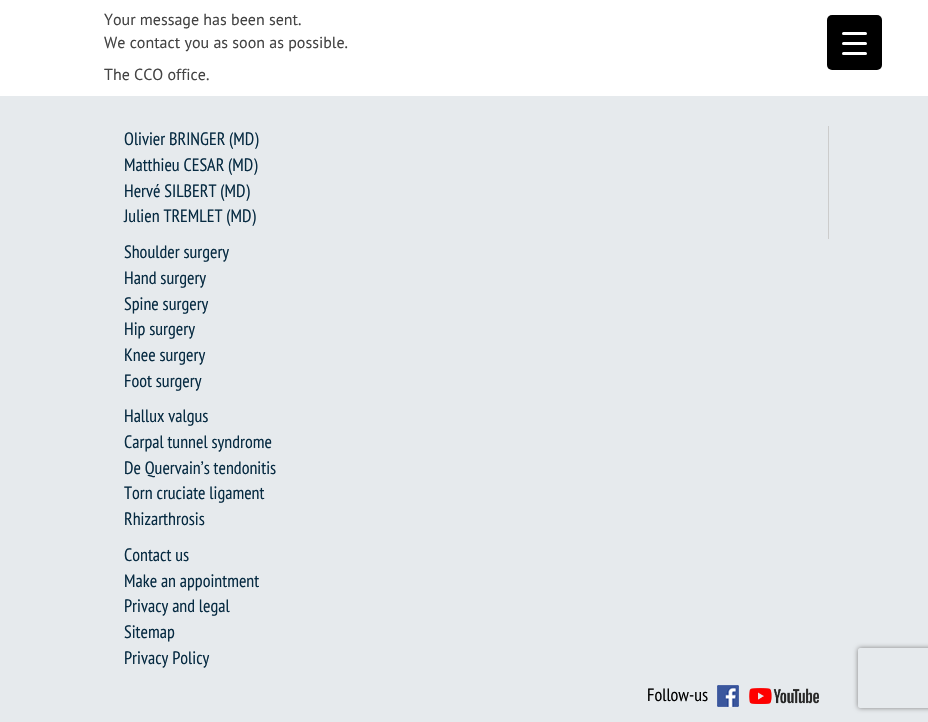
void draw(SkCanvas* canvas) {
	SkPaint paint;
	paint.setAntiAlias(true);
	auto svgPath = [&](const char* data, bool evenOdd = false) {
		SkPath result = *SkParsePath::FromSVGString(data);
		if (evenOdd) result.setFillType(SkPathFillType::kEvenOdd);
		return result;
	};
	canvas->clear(0xffffffff);
	SkFont f1(fontMgr->matchFamilyStyle("PT Sans", SkFontStyle::Normal()), 16);
	f1.setSubpixel(true);
	paint.setColor(0xff444444);
	canvas->drawString("Your message has been sent.", 104, 25, f1, paint);
	canvas->drawString("We contact you as soon as possible.", 104, 48, f1, paint);
	canvas->drawString("The CCO office.", 104, 80, f1, paint);
	paint.setColor(0xff000000);
	canvas->drawRoundRect(SkRect::MakeXYWH(827, 15, 55, 55), 5, 5, paint);
	paint.setColor(0xffffffff);
	canvas->drawRoundRect(SkRect::MakeXYWH(842, 42, 25, 3), 1.5, 1.5, paint);
	canvas->drawRoundRect(SkRect::MakeXYWH(842, 32, 25, 3), 1.5, 1.5, paint);
	canvas->drawRoundRect(SkRect::MakeXYWH(842, 52, 25, 3), 1.5, 1.5, paint);
	paint.setColor(0xffe6eaed);
	canvas->drawRect(SkRect::MakeXYWH(0, 96, 928, 626), paint);
	paint.setColor(0xffcccccc);
	canvas->drawRect(SkRect::MakeXYWH(828, 126, 1, 113), paint);
	SkFont f2(fontMgr->matchFamilyStyle("PT Sans Narrow", SkFontStyle::Normal()), 18);
	f2.setSubpixel(true);
	paint.setColor(0xff072b42);
	canvas->drawString("Olivier BRINGER (MD)", 124, 145, f2, paint);
	canvas->drawString("Matthieu CESAR (MD)", 124, 171, f2, paint);
	canvas->drawString("Hervé SILBERT (MD)", 124, 197, f2, paint);
	canvas->drawString("Julien TREMLET (MD)", 124, 222, f2, paint);
	canvas->drawString("Shoulder surgery", 124, 258, f2, paint);
	canvas->drawString("Hand surgery", 124, 284, f2, paint);
	canvas->drawString("Spine surgery", 124, 310, f2, paint);
	canvas->drawString("Hip surgery", 124, 335, f2, paint);
	canvas->drawString("Knee surgery", 124, 361, f2, paint);
	canvas->drawString("Foot surgery", 124, 387, f2, paint);
	canvas->drawString("Hallux valgus", 124, 422, f2, paint);
	canvas->drawString("Carpal tunnel syndrome", 124, 448, f2, paint);
	canvas->drawString("De Quervain’s tendonitis", 124, 474, f2, paint);
	canvas->drawString("Torn cruciate ligament", 124, 499, f2, paint);
	canvas->drawString("Rhizarthrosis", 124, 525, f2, paint);
	canvas->drawString("Contact us", 124, 561, f2, paint);
	canvas->drawString("Make an appointment", 124, 587, f2, paint);
	canvas->drawString("Privacy and legal", 124, 612, f2, paint);
	canvas->drawString("Sitemap", 124, 638, f2, paint);
	canvas->drawString("Privacy Policy", 124, 664, f2, paint);
	paint.setColor(0xff000000);
	canvas->drawString("Follow-us", 647, 701, f2, paint);
	canvas->drawImageRect(SkImages::DeferredFromEncodedData(SkData::MakeFromFileName("img1.png")), SkRect::MakeXYWH(717, 685, 22, 22), SkSamplingOptions());
	canvas->drawImageRect(SkImages::DeferredFromEncodedData(SkData::MakeFromFileName("img2.png")), SkRect::MakeXYWH(749, 688, 70, 16), SkSamplingOptions());
	canvas->save();
	canvas->clipPath(svgPath("M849 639H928V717H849ZM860 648H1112C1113 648 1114 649 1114 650V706C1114 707 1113 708 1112 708H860C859 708 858 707 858 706V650C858 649 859 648 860 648Z", true), true);
	paint.setColor(0xff808080);
	paint.setMaskFilter(SkMaskFilter::MakeBlur(kNormal_SkBlurStyle, 2.5));
	canvas->drawRoundRect(SkRect::MakeXYWH(858, 648, 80, 60), 2, 2, paint);
	paint.setMaskFilter(nullptr);
	canvas->restore();
}
